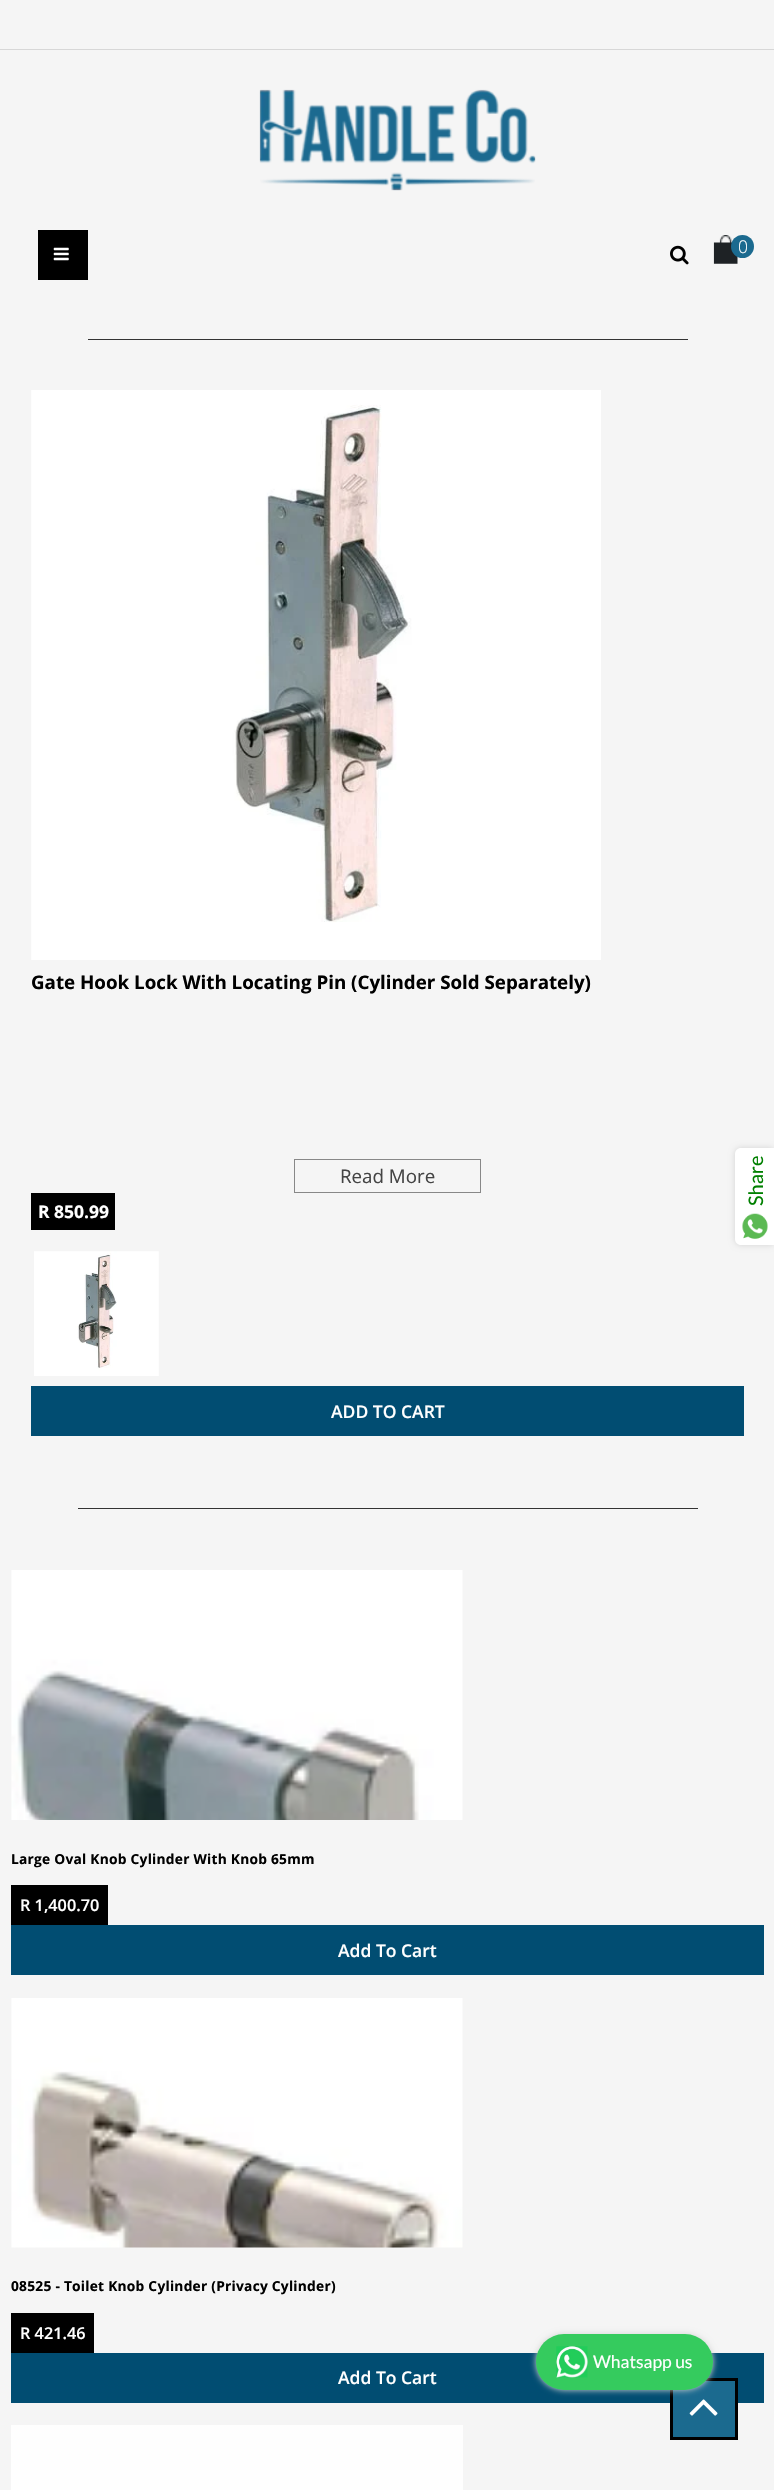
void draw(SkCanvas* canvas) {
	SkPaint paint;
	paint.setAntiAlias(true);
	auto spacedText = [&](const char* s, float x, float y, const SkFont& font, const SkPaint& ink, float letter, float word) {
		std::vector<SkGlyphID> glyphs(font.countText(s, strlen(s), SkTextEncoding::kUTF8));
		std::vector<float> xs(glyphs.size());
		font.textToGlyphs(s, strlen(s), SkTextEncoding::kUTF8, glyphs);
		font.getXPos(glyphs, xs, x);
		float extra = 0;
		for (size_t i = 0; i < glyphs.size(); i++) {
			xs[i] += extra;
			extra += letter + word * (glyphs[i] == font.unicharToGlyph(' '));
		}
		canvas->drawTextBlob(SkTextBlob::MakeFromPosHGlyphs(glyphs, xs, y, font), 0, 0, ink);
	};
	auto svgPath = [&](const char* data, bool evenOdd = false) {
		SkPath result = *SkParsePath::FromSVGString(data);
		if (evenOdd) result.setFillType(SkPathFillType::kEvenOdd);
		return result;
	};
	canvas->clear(0xfff5f5f5);
	paint.setColor(0xffd7d7d7);
	canvas->drawRect(SkRect::MakeXYWH(0, 49, 774, 1), paint);
	canvas->drawImageRect(SkImages::DeferredFromEncodedData(SkData::MakeFromFileName("img1.png")), SkRect::MakeXYWH(259, 89, 277, 102), SkSamplingOptions());
	paint.setColor(0xff000000);
	canvas->drawRect(SkRect::MakeXYWH(38, 230, 50, 50), paint);
	canvas->drawImageRect(SkImages::DeferredFromEncodedData(SkData::MakeFromFileName("img2.png")), SkRect::MakeXYWH(53, 247, 16, 14), SkSamplingOptions());
	canvas->drawImageRect(SkImages::DeferredFromEncodedData(SkData::MakeFromFileName("img3.png")), SkRect::MakeXYWH(670, 245, 19, 20), SkSamplingOptions());
	canvas->drawImageRect(SkImages::DeferredFromEncodedData(SkData::MakeFromFileName("img4.png")), SkRect::MakeXYWH(713, 235, 25, 29), SkSamplingOptions());
	paint.setColor(0xff1b6a8f);
	canvas->drawCircle(742.5, 246.5, 11.5, paint);
	SkFont f1(fontMgr->matchFamilyStyle("Open Sans", SkFontStyle(300, SkFontStyle::kNormal_Width, SkFontStyle::kUpright_Slant)), 17.5);
	f1.setSubpixel(true);
	paint.setColor(0xffffffff);
	canvas->drawString("0", 738, 253, f1, paint);
	paint.setColor(0xff333333);
	canvas->drawRect(SkRect::MakeXYWH(88, 339, 600, 1), paint);
	canvas->drawImageRect(SkImages::DeferredFromEncodedData(SkData::MakeFromFileName("img5.png")), SkRect::MakeXYWH(31, 390, 570, 570), SkSamplingOptions());
	SkFont f2(fontMgr->matchFamilyStyle("Open Sans", SkFontStyle::Bold()), 18.75);
	f2.setSubpixel(true);
	paint.setColor(0xff000000);
	canvas->drawString("Gate Hook Lock With Locating Pin (Cylinder Sold Separately)", 31, 989, f2, paint);
	paint.setStroke(true);
	paint.setStrokeWidth(1);
	paint.setColor(0xff888888);
	canvas->drawRect(SkRect::MakeXYWH(294.5, 1159.5, 186, 33), paint);
	SkFont f3(fontMgr->matchFamilyStyle("Open Sans", SkFontStyle::Normal()), 18.75);
	f3.setSubpixel(true);
	paint.setStroke(false);
	paint.setColor(0xff444444);
	canvas->drawString("Read More", 340, 1183, f3, paint);
	paint.setColor(0xff000000);
	canvas->drawRect(SkRect::MakeXYWH(31, 1193, 84, 37), paint);
	SkFont f4(fontMgr->matchFamilyStyle("Open Sans", SkFontStyle::Bold()), 17.5);
	f4.setSubpixel(true);
	paint.setColor(0xffffffff);
	canvas->drawString("R 850.99", 38, 1218, f4, paint);
	canvas->drawImageRect(SkImages::DeferredFromEncodedData(SkData::MakeFromFileName("img6.png")), SkRect::MakeXYWH(34, 1251, 125, 125), SkSamplingOptions());
	paint.setColor(0xff014d72);
	canvas->drawRect(SkRect::MakeXYWH(31, 1386, 713, 50), paint);
	SkFont f5(fontMgr->matchFamilyStyle("Open Sans", SkFontStyle(600, SkFontStyle::kNormal_Width, SkFontStyle::kUpright_Slant)), 17.5);
	f5.setSubpixel(true);
	paint.setColor(0xffffffff);
	canvas->drawString("ADD TO CART", 331, 1418, f5, paint);
	paint.setColor(0xff333333);
	canvas->drawRect(SkRect::MakeXYWH(78, 1508, 620, 1), paint);
	canvas->drawImageRect(SkImages::DeferredFromEncodedData(SkData::MakeFromFileName("img7.png")), SkRect::MakeXYWH(11, 1570, 452, 250), SkSamplingOptions());
	SkFont f6(fontMgr->matchFamilyStyle("Open Sans", SkFontStyle::Bold()), 13.75);
	f6.setSubpixel(true);
	paint.setColor(0xff000000);
	spacedText("Large Oval Knob Cylinder With Knob 65mm", 11, 1864, f6, paint, 0.25, 0);
	canvas->drawRect(SkRect::MakeXYWH(11, 1885, 97, 40), paint);
	SkFont f7(fontMgr->matchFamilyStyle("Open Sans", SkFontStyle(600, SkFontStyle::kNormal_Width, SkFontStyle::kUpright_Slant)), 16.25);
	f7.setSubpixel(true);
	paint.setColor(0xffffffff);
	canvas->drawString("R 1,400.70", 20, 1911, f7, paint);
	paint.setColor(0xff014d72);
	canvas->drawRect(SkRect::MakeXYWH(11, 1925, 753, 50), paint);
	paint.setColor(0xffffffff);
	canvas->drawString("Add To Cart", 338, 1957, f5, paint);
	canvas->drawImageRect(SkImages::DeferredFromEncodedData(SkData::MakeFromFileName("img8.png")), SkRect::MakeXYWH(11, 1998, 452, 250), SkSamplingOptions());
	paint.setColor(0xff000000);
	spacedText("08525 - Toilet Knob Cylinder (Privacy Cylinder)", 11, 2291, f6, paint, 0.25, 0);
	canvas->drawRect(SkRect::MakeXYWH(11, 2313, 83, 40), paint);
	paint.setColor(0xffffffff);
	canvas->drawString("R 421.46", 20, 2339, f7, paint);
	paint.setColor(0xff014d72);
	canvas->drawRect(SkRect::MakeXYWH(11, 2353, 753, 50), paint);
	paint.setColor(0xffffffff);
	canvas->drawString("Add To Cart", 338, 2384, f5, paint);
	paint.setColor(0xfffefefe);
	canvas->drawRect(SkRect::MakeXYWH(11, 2425, 452, 65), paint);
	paint.setColor(0xff1b6a8f);
	canvas->drawRect(SkRect::MakeXYWH(671.5, 2379.5, 65, 59), paint);
	paint.setStroke(true);
	paint.setStrokeWidth(3);
	paint.setColor(0xff000000);
	canvas->drawRect(SkRect::MakeXYWH(671.5, 2379.5, 65, 59), paint);
	canvas->drawImageRect(SkImages::DeferredFromEncodedData(SkData::MakeFromFileName("img9.png")), SkRect::MakeXYWH(689, 2399, 29, 17), SkSamplingOptions());
	paint.setStroke(false);
	paint.setColor(0xffd3d3d3);
	paint.setMaskFilter(SkMaskFilter::MakeBlur(kNormal_SkBlurStyle, 3));
	canvas->drawRoundRect(SkRect::MakeXYWH(735, 1148, 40, 97), 6, 6, paint);
	paint.setMaskFilter(nullptr);
	paint.setColor(0xffffffff);
	canvas->drawPath(svgPath("M741 1148H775V1245H741C737.5 1245 735 1242.5 735 1239V1154C735 1150.5 737.5 1148 741 1148Z"), paint);
	SkFont f8(fontMgr->matchFamilyStyle("Lato", SkFontStyle::Normal()), 20);
	f8.setSubpixel(true);
	paint.setColor(0xff008000);
	canvas->save();
	canvas->rotate(-90, 763, 1206);
	canvas->drawString("Share", 763, 1206, f8, paint);
	canvas->restore();
	canvas->drawImageRect(SkImages::DeferredFromEncodedData(SkData::MakeFromFileName("img10.png")), SkRect::MakeXYWH(742, 1213, 26, 26), SkSamplingOptions());
	paint.setColor(0xffd3d3d3);
	paint.setMaskFilter(SkMaskFilter::MakeBlur(kNormal_SkBlurStyle, 3));
	canvas->drawRoundRect(SkRect::MakeXYWH(536, 2334, 177, 56), 28, 28, paint);
	paint.setMaskFilter(nullptr);
	paint.setColor(0xff35cb5e);
	canvas->drawRoundRect(SkRect::MakeXYWH(536, 2334, 177, 56), 28, 28, paint);
	canvas->drawImageRect(SkImages::DeferredFromEncodedData(SkData::MakeFromFileName("img11.png")), SkRect::MakeXYWH(556, 2346, 32, 32), SkSamplingOptions());
	SkFont f9(fontMgr->matchFamilyStyle("Lato", SkFontStyle::Normal()), 17.5);
	f9.setSubpixel(true);
	paint.setColor(0xffffffff);
	canvas->drawString("Whatsapp us", 593, 2368, f9, paint);
}
